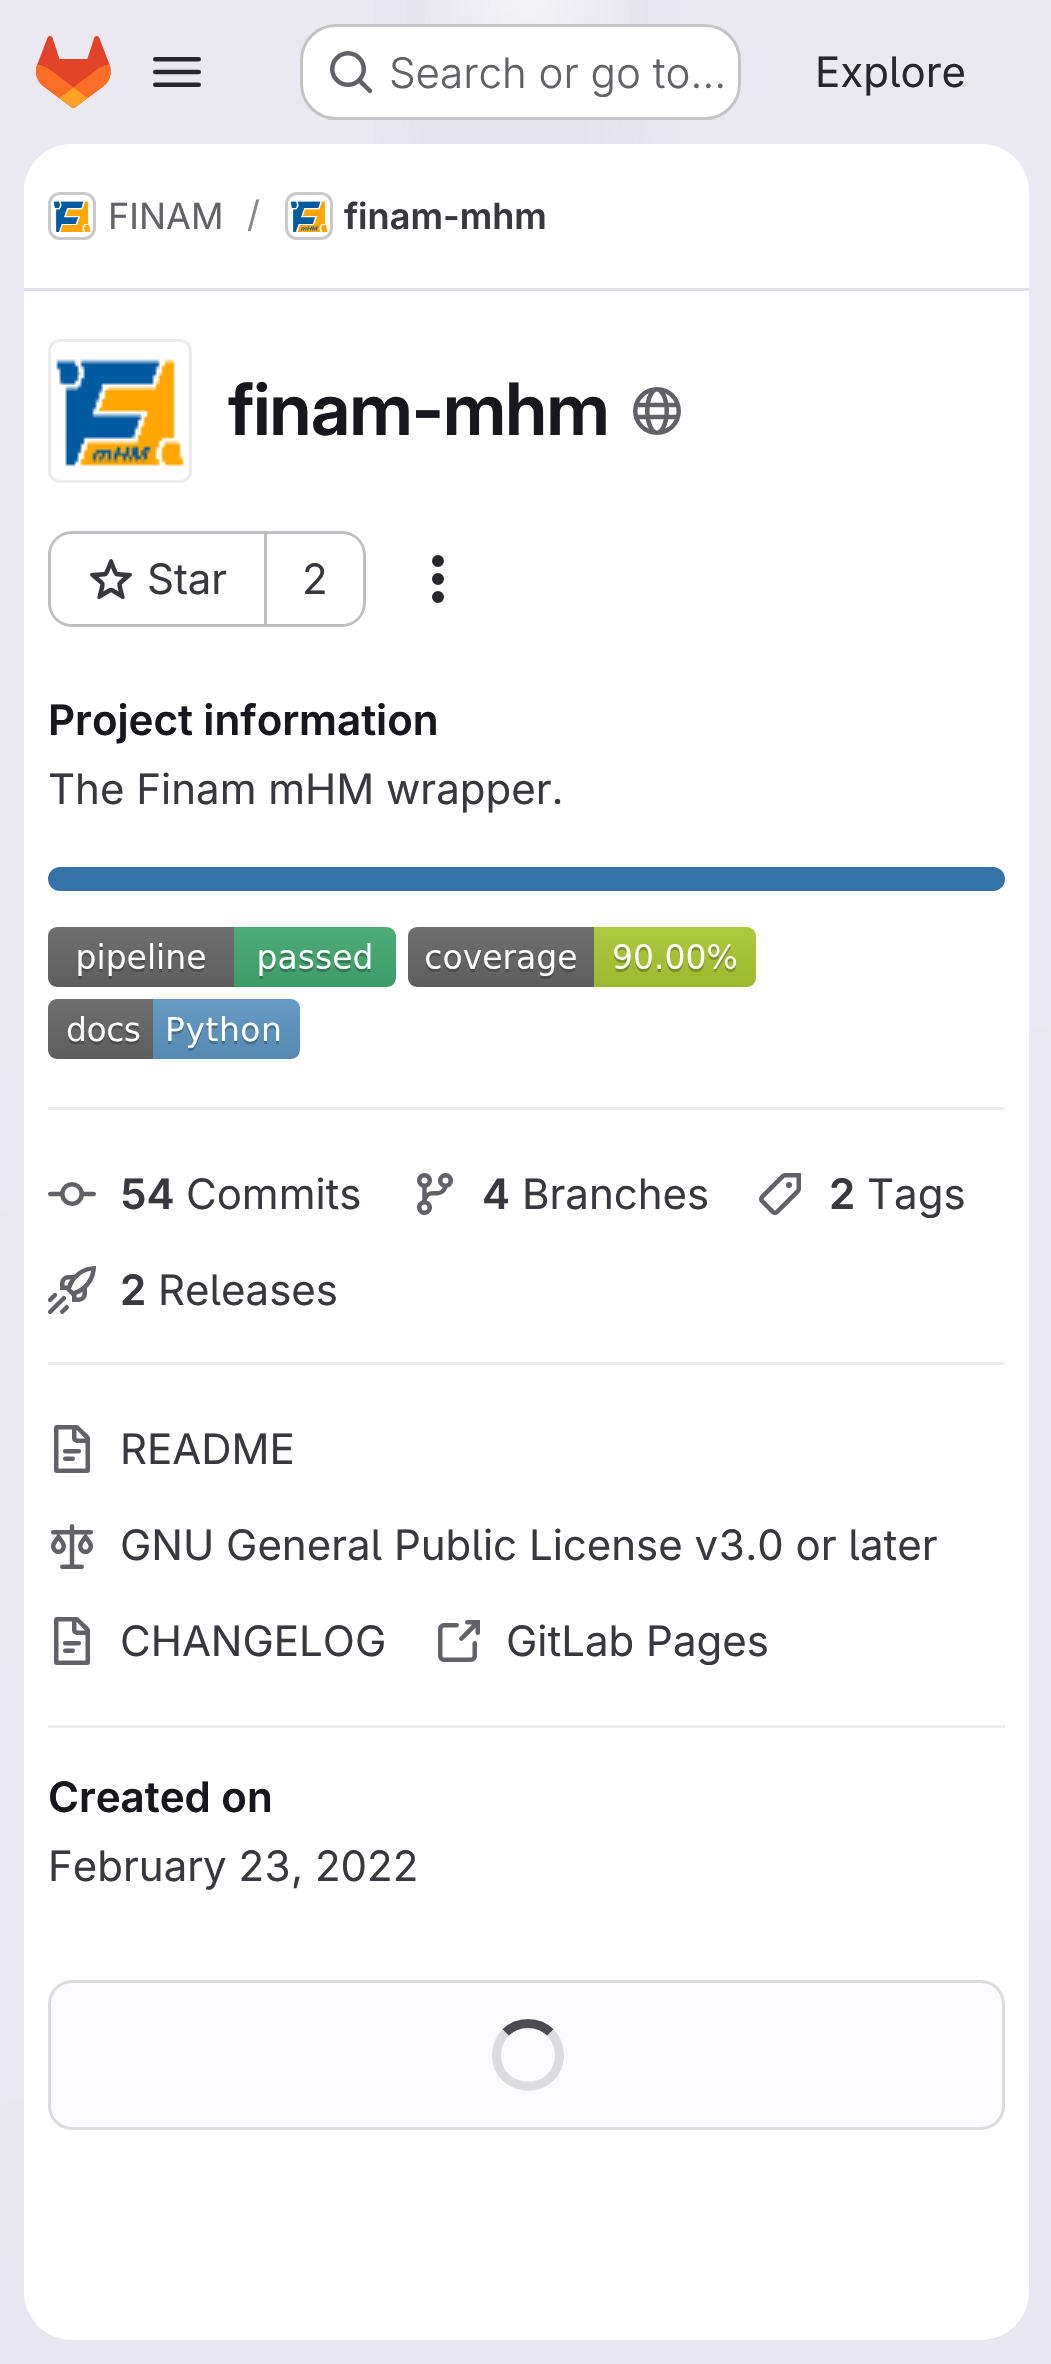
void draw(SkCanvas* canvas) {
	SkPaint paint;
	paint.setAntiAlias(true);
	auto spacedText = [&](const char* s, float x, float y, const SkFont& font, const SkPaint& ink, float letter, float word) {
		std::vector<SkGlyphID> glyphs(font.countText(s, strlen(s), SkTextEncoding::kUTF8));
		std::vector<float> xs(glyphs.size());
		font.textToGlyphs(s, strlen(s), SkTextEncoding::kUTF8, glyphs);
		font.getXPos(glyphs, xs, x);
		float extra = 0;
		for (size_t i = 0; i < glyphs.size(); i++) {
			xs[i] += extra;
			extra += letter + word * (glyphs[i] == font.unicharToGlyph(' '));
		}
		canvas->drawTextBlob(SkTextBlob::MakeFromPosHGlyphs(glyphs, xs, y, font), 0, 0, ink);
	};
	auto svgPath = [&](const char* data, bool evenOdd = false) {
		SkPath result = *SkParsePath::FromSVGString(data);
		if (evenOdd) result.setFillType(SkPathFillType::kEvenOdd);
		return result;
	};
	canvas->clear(0xffffffff);
	{
		const SkColor colors[] = {0xffe8e6f0, 0xffeae9f2};
		const float stops[] = {0, 0.7};
		const SkPoint ends[] = {{745, 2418}, {308, -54}};
		paint.setShader(SkGradientShader::MakeLinear(ends, colors, stops, 2, SkTileMode::kClamp));
		paint.setAlpha(255);
	}
	canvas->drawRect(SkRect::MakeXYWH(0, 0, 1051, 2364), paint);
	{
		const SkColor colors[] = {0xffe4e2ed, 0x00e4e2ed};
		const float stops[] = {0, 0.4};
		SkMatrix m = SkMatrix::Translate(527, 0).preScale(527, 2364);
		paint.setShader(SkGradientShader::MakeRadial({0, 0}, 1, colors, stops, 2, SkTileMode::kClamp, 0, &m));
		paint.setAlpha(255);
	}
	canvas->drawRect(SkRect::MakeXYWH(374, 0, 306, 144), paint);
	{
		const SkColor colors[] = {0xffe4e2ec, 0x00e4e2ec};
		const float stops[] = {0, 0.28};
		SkMatrix m = SkMatrix::Translate(527, 0).preScale(527, 2364);
		paint.setShader(SkGradientShader::MakeRadial({0, 0}, 1, colors, stops, 2, SkTileMode::kClamp, 0, &m));
		paint.setAlpha(255);
	}
	canvas->drawRect(SkRect::MakeXYWH(465, 11, 124, 132), paint);
	{
		const SkColor colors[] = {0x99ffffff, 0x00ffffff};
		const float stops[] = {0, 0.05};
		paint.setShader(SkGradientShader::MakeRadial({527, 0}, 2422, colors, stops, 2, SkTileMode::kClamp));
		paint.setAlpha(255);
	}
	canvas->drawRect(SkRect::MakeXYWH(425, 0, 204, 24), paint);
	canvas->drawImageRect(SkImages::DeferredFromEncodedData(SkData::MakeFromFileName("img1.png")), SkRect::MakeXYWH(36, 36, 75, 72), SkSamplingOptions());
	canvas->drawImageRect(SkImages::DeferredFromEncodedData(SkData::MakeFromFileName("img2.png")), SkRect::MakeXYWH(153, 57, 48, 30), SkSamplingOptions());
	paint.setShader(nullptr);
	paint.setColor(0xffffffff);
	canvas->drawRoundRect(SkRect::MakeXYWH(300, 24, 441, 96), 36, 36, paint);
	paint.setStroke(true);
	paint.setStrokeWidth(3);
	paint.setColor(0x3d050506);
	canvas->drawRoundRect(SkRect::MakeXYWH(301.5, 25.5, 438, 93), 34.5, 34.5, paint);
	canvas->drawImageRect(SkImages::DeferredFromEncodedData(SkData::MakeFromFileName("img3.png")), SkRect::MakeXYWH(330, 51, 43, 43), SkSamplingOptions());
	SkFont f1(fontMgr->matchFamilyStyle("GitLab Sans", SkFontStyle(300, SkFontStyle::kNormal_Width, SkFontStyle::kUpright_Slant)), 42);
	f1.setSubpixel(true);
	paint.setStroke(false);
	paint.setColor(0xff626168);
	canvas->drawString("Search or go to…", 389, 88, f1, paint);
	SkFont f2(fontMgr->matchFamilyStyle("GitLab Sans", SkFontStyle::Normal()), 42);
	f2.setSubpixel(true);
	paint.setColor(0xff28272d);
	canvas->drawString("Explore", 815, 87, f2, paint);
	paint.setColor(0xffffffff);
	canvas->drawRoundRect(SkRect::MakeXYWH(24, 144, 1005, 2196), 48, 48, paint);
	canvas->drawPath(svgPath("M72 144H981C1007.5 144 1029 165.5 1029 192V291H24V192C24 165.5 45.5 144 72 144Z"), paint);
	paint.setColor(0xffe1dfec);
	canvas->drawRect(SkRect::MakeXYWH(24, 288, 1005, 3), paint);
	paint.setStroke(true);
	paint.setColor(0xffdcdcde);
	canvas->drawRoundRect(SkRect::MakeXYWH(49.5, 193.5, 45, 45), 10.5, 10.5, paint);
	canvas->drawImageRect(SkImages::DeferredFromEncodedData(SkData::MakeFromFileName("img4.png")), SkRect::MakeXYWH(53, 201, 38, 31), SkSamplingOptions());
	paint.setColor(0x14050506);
	canvas->drawRoundRect(SkRect::MakeXYWH(49.5, 193.5, 45, 45), 10.5, 10.5, paint);
	SkFont f3(fontMgr->matchFamilyStyle("GitLab Sans", SkFontStyle::Normal()), 36);
	f3.setSubpixel(true);
	paint.setStroke(false);
	paint.setColor(0xff626168);
	canvas->drawString("FINAM", 108, 229, f3, paint);
	paint.setColor(0xff89888d);
	canvas->drawString("/", 247, 227, f3, paint);
	paint.setStroke(true);
	paint.setColor(0xffdcdcde);
	canvas->drawRoundRect(SkRect::MakeXYWH(286.5, 193.5, 45, 45), 10.5, 10.5, paint);
	canvas->drawImageRect(SkImages::DeferredFromEncodedData(SkData::MakeFromFileName("img5.png")), SkRect::MakeXYWH(290, 201, 38, 31), SkSamplingOptions());
	paint.setColor(0x14050506);
	canvas->drawRoundRect(SkRect::MakeXYWH(286.5, 193.5, 45, 45), 10.5, 10.5, paint);
	SkFont f4(fontMgr->matchFamilyStyle("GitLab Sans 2", SkFontStyle(600, SkFontStyle::kNormal_Width, SkFontStyle::kUpright_Slant)), 36);
	f4.setSubpixel(true);
	paint.setStroke(false);
	paint.setColor(0xff3a383f);
	canvas->drawString("finam-mhm", 344, 229, f4, paint);
	canvas->drawImageRect(SkImages::DeferredFromEncodedData(SkData::MakeFromFileName("img6.png")), SkRect::MakeXYWH(56, 359, 128, 107), SkSamplingOptions());
	paint.setStroke(true);
	paint.setColor(0xffebebeb);
	canvas->drawRoundRect(SkRect::MakeXYWH(49.5, 340.5, 141, 141), 10.5, 10.5, paint);
	SkFont f5(fontMgr->matchFamilyStyle("GitLab Sans", SkFontStyle(600, SkFontStyle::kNormal_Width, SkFontStyle::kUpright_Slant)), 72);
	f5.setSubpixel(true);
	paint.setStroke(false);
	paint.setColor(0xff18171d);
	spacedText("finam-mhm", 228, 435, f5, paint, -0.75, 0);
	canvas->drawImageRect(SkImages::DeferredFromEncodedData(SkData::MakeFromFileName("img7.png")), SkRect::MakeXYWH(633, 387, 48, 48), SkSamplingOptions());
	paint.setColor(0xffbfbfc3);
	canvas->drawPath(svgPath("M72 531H264V627H72C59 627 48 616 48 603V555C48 542 59 531 72 531ZM72 534H264V624H72C60 624 51 615 51 603V555C51 543 60 534 72 534Z", true), paint);
	canvas->drawImageRect(SkImages::DeferredFromEncodedData(SkData::MakeFromFileName("img8.png")), SkRect::MakeXYWH(90, 559, 42, 41), SkSamplingOptions());
	paint.setColor(0xff3a383f);
	canvas->drawString("Star", 147, 594, f2, paint);
	paint.setColor(0xffbfbfc3);
	canvas->drawPath(svgPath("M267 531H342C355 531 366 542 366 555V603C366 616 355 627 342 627H267ZM267 534H342C354 534 363 543 363 555V603C363 615 354 624 342 624H267Z", true), paint);
	canvas->drawRect(SkRect::MakeXYWH(264, 531, 3, 96), paint);
	paint.setColor(0xff3a383f);
	canvas->drawString("2", 302, 594, f2, paint);
	canvas->drawImageRect(SkImages::DeferredFromEncodedData(SkData::MakeFromFileName("img9.png")), SkRect::MakeXYWH(432, 555, 12, 48), SkSamplingOptions());
	paint.setColor(0xffececef);
	canvas->drawRect(SkRect::MakeXYWH(48, 1107, 957, 3), paint);
	SkFont f6(fontMgr->matchFamilyStyle("GitLab Sans 2", SkFontStyle(600, SkFontStyle::kNormal_Width, SkFontStyle::kUpright_Slant)), 42);
	f6.setSubpixel(true);
	paint.setColor(0xff18171d);
	canvas->drawString("Project information", 48, 735, f6, paint);
	paint.setColor(0xff3a383f);
	canvas->drawString("The Finam mHM wrapper.", 48, 804, f2, paint);
	paint.setColor(0xff3572a5);
	canvas->drawRoundRect(SkRect::MakeXYWH(48, 867, 957, 24), 12, 12, paint);
	canvas->drawImageRect(SkImages::DeferredFromEncodedData(SkData::MakeFromFileName("img10.png")), SkRect::MakeXYWH(48, 927, 348, 60), SkSamplingOptions());
	canvas->drawImageRect(SkImages::DeferredFromEncodedData(SkData::MakeFromFileName("img11.png")), SkRect::MakeXYWH(408, 927, 348, 60), SkSamplingOptions());
	canvas->drawImageRect(SkImages::DeferredFromEncodedData(SkData::MakeFromFileName("img12.png")), SkRect::MakeXYWH(48, 999, 252, 60), SkSamplingOptions());
	paint.setColor(0xffececef);
	canvas->drawRect(SkRect::MakeXYWH(48, 1362, 957, 3), paint);
	canvas->drawImageRect(SkImages::DeferredFromEncodedData(SkData::MakeFromFileName("img13.png")), SkRect::MakeXYWH(48, 1182, 48, 24), SkSamplingOptions());
	paint.setColor(0xff3a383f);
	canvas->drawString("54", 120, 1209, f6, paint);
	canvas->drawString("Commits", 186, 1209, f2, paint);
	canvas->drawImageRect(SkImages::DeferredFromEncodedData(SkData::MakeFromFileName("img14.png")), SkRect::MakeXYWH(417, 1173, 36, 42), SkSamplingOptions());
	canvas->drawString("4", 482, 1209, f6, paint);
	canvas->drawString("Branches", 522, 1209, f2, paint);
	canvas->drawImageRect(SkImages::DeferredFromEncodedData(SkData::MakeFromFileName("img15.png")), SkRect::MakeXYWH(759, 1173, 42, 42), SkSamplingOptions());
	canvas->drawString("2", 829, 1209, f6, paint);
	canvas->drawString("Tags", 867, 1209, f2, paint);
	canvas->drawImageRect(SkImages::DeferredFromEncodedData(SkData::MakeFromFileName("img16.png")), SkRect::MakeXYWH(48, 1266, 48, 48), SkSamplingOptions());
	canvas->drawString("2", 120, 1305, f6, paint);
	canvas->drawString("Releases", 158, 1305, f2, paint);
	paint.setColor(0xffececef);
	canvas->drawRect(SkRect::MakeXYWH(48, 1725, 957, 3), paint);
	canvas->drawImageRect(SkImages::DeferredFromEncodedData(SkData::MakeFromFileName("img17.png")), SkRect::MakeXYWH(54, 1425, 36, 48), SkSamplingOptions());
	paint.setColor(0xff3a383f);
	canvas->drawString("README", 120, 1464, f2, paint);
	canvas->drawImageRect(SkImages::DeferredFromEncodedData(SkData::MakeFromFileName("img18.png")), SkRect::MakeXYWH(51, 1524, 42, 45), SkSamplingOptions());
	canvas->drawString("GNU General Public License v3.0 or later", 120, 1560, f2, paint);
	canvas->drawImageRect(SkImages::DeferredFromEncodedData(SkData::MakeFromFileName("img17.png")), SkRect::MakeXYWH(54, 1617, 36, 48), SkSamplingOptions());
	canvas->drawString("CHANGELOG", 120, 1656, f2, paint);
	canvas->drawImageRect(SkImages::DeferredFromEncodedData(SkData::MakeFromFileName("img19.png")), SkRect::MakeXYWH(438, 1620, 42, 42), SkSamplingOptions());
	canvas->drawString("GitLab Pages", 506, 1656, f2, paint);
	paint.setColor(0xff18171d);
	canvas->drawString("Created on", 48, 1812, f6, paint);
	paint.setColor(0xff3a383f);
	canvas->drawString("February 23, 2022", 48, 1881, f2, paint);
	paint.setColor(0xfffbfafd);
	canvas->drawRoundRect(SkRect::MakeXYWH(49.5, 1981.5, 954, 147), 22.5, 22.5, paint);
	paint.setStroke(true);
	paint.setColor(0xffdcdcde);
	canvas->drawRoundRect(SkRect::MakeXYWH(49.5, 1981.5, 954, 147), 22.5, 22.5, paint);
	paint.setStrokeWidth(9);
	paint.setColor(0xff4c4b51);
	canvas->drawPath(svgPath("M505.5 2032.5C518 2020.5 538 2020.5 550.5 2032.5"), paint);
	paint.setColor(0xffdcdcde);
	canvas->drawPath(svgPath("M550.5 2032.5C557.5 2040 561 2051 559 2061C551.5 2098 496.5 2092.5 496.5 2055C496.5 2046.5 500 2038.5 505.5 2032.5"), paint);
}
